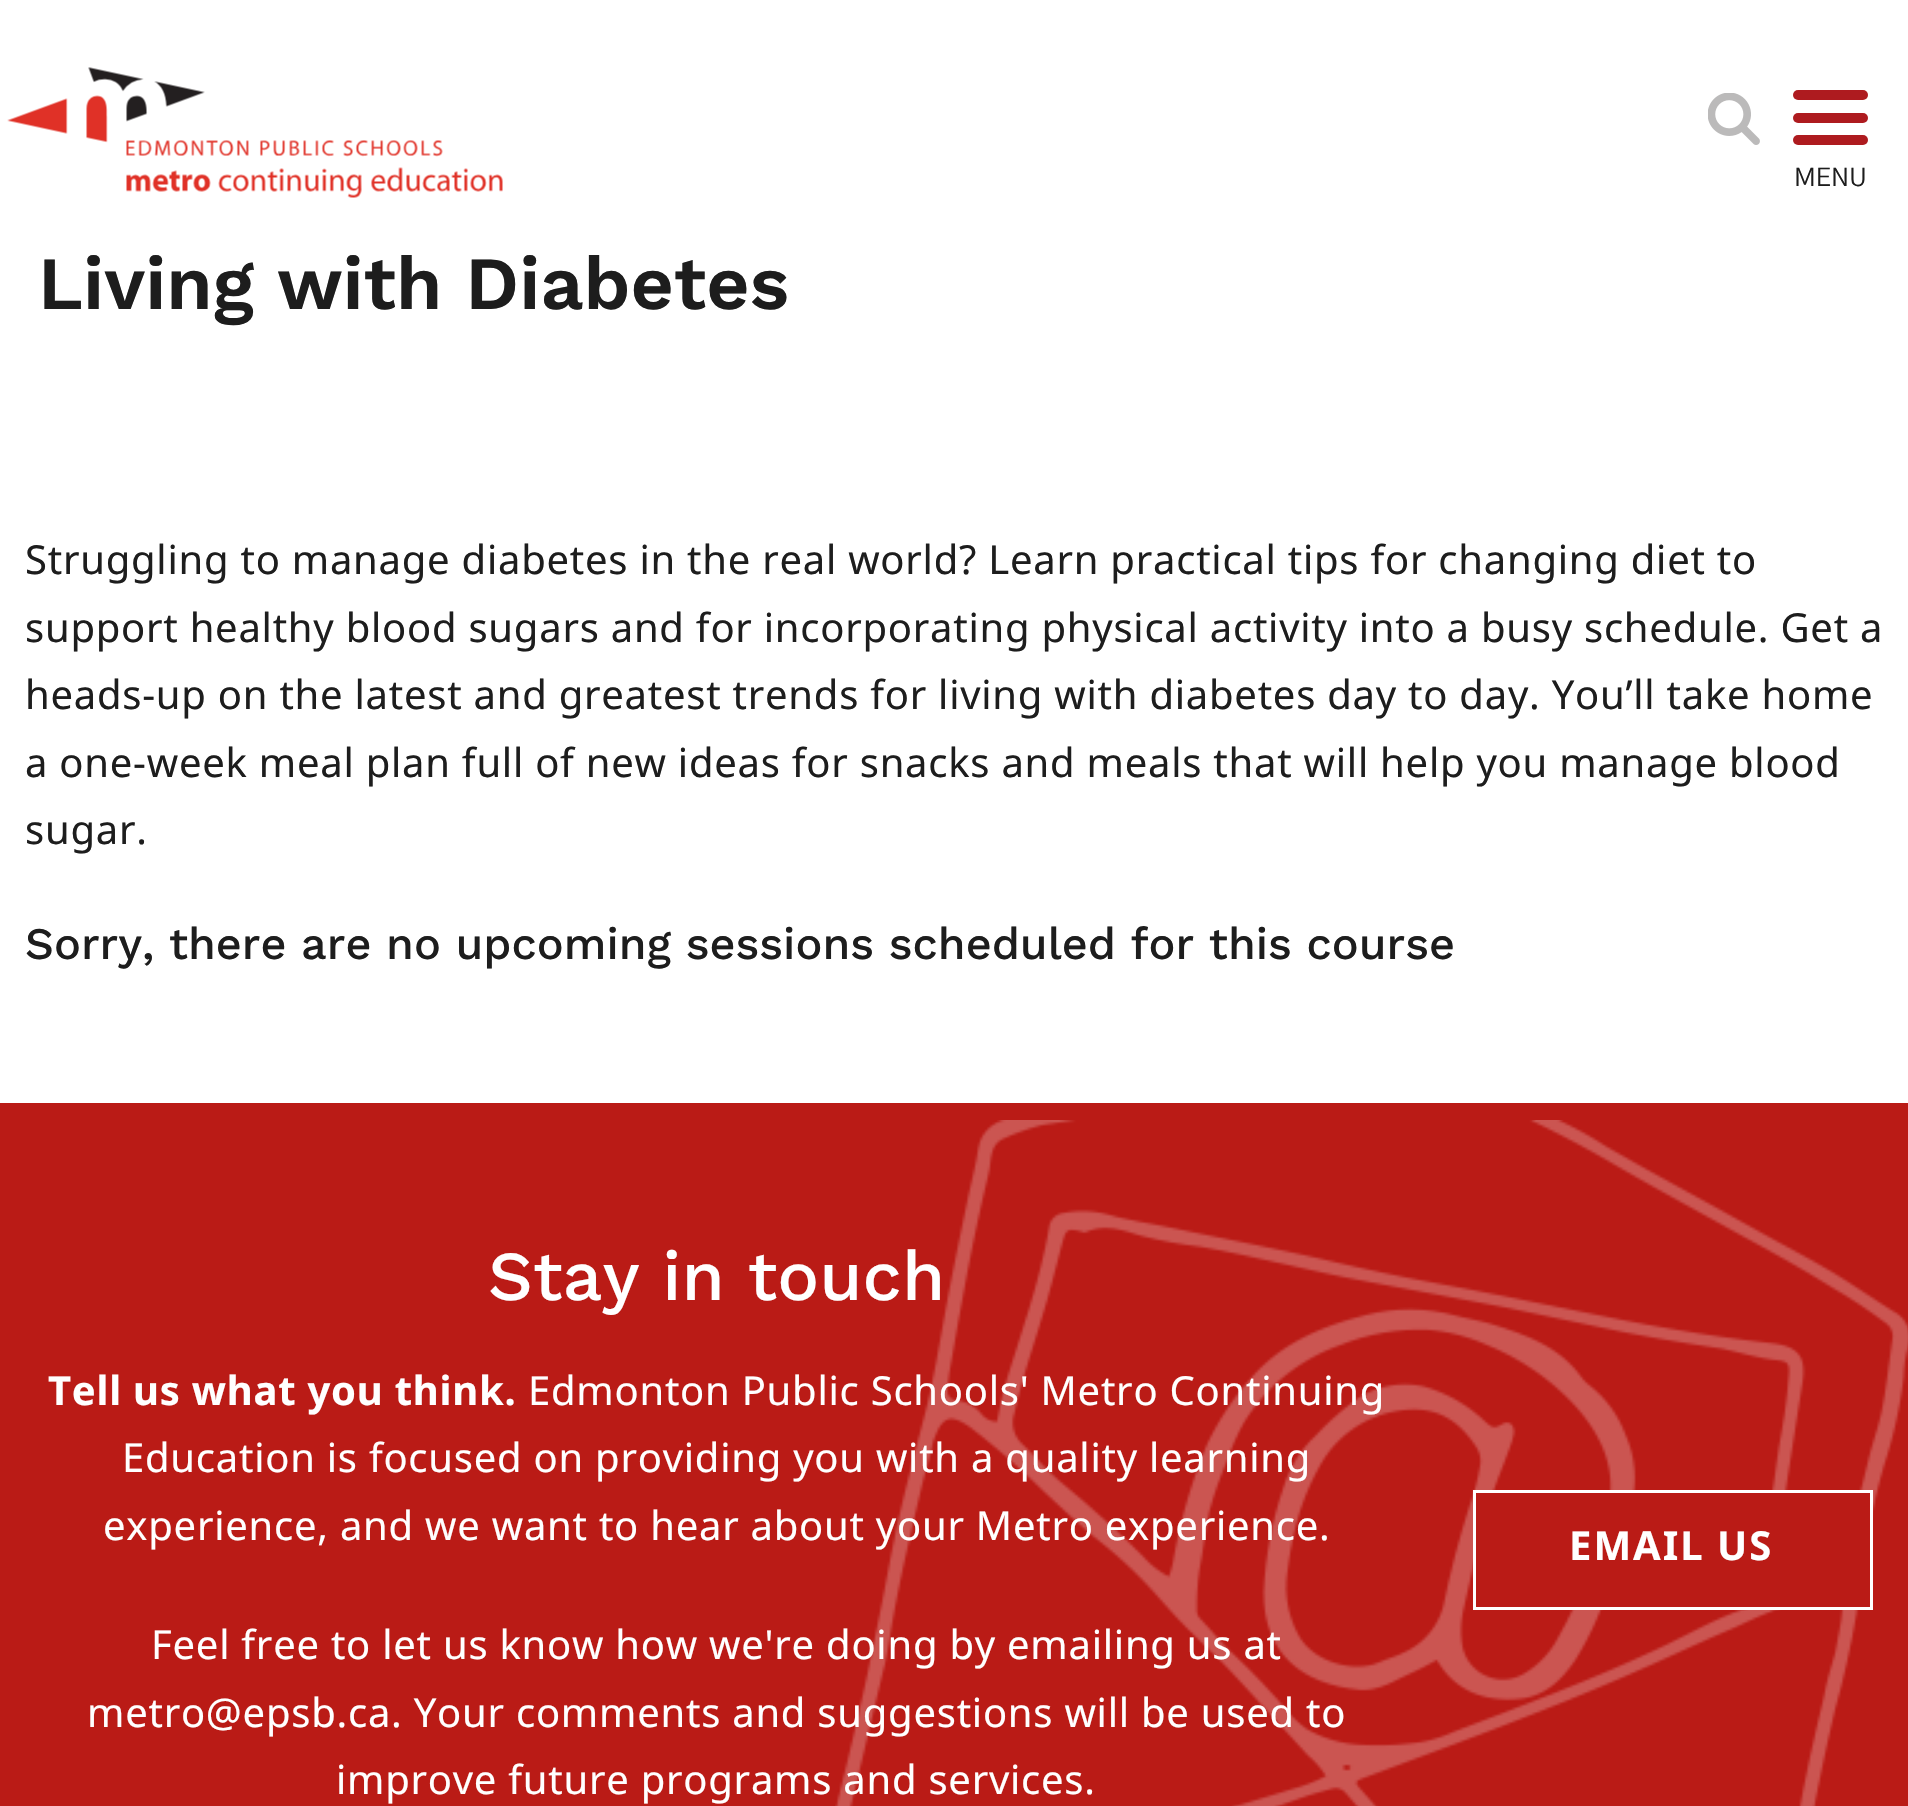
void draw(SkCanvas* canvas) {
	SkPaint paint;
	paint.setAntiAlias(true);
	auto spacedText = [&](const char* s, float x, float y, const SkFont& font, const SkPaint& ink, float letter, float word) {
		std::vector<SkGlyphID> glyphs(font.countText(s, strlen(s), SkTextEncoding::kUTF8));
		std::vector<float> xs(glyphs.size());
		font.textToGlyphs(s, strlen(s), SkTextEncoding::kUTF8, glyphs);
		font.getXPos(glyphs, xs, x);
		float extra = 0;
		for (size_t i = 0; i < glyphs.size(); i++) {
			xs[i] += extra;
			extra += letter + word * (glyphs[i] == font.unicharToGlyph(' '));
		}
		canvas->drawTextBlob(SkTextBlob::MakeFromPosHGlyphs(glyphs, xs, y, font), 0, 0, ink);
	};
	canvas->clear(0xffffffff);
	canvas->drawImageRect(SkImages::DeferredFromEncodedData(SkData::MakeFromFileName("img1.png")), SkRect::MakeXYWH(7, 67, 496, 131), SkSamplingOptions());
	canvas->drawImageRect(SkImages::DeferredFromEncodedData(SkData::MakeFromFileName("img2.png")), SkRect::MakeXYWH(1708, 93, 52, 52), SkSamplingOptions());
	paint.setColor(0xffae1b1f);
	canvas->drawRoundRect(SkRect::MakeXYWH(1793, 90, 75, 10), 5, 5, paint);
	canvas->drawRoundRect(SkRect::MakeXYWH(1793, 113, 75, 10), 5, 5, paint);
	canvas->drawRoundRect(SkRect::MakeXYWH(1793, 135, 75, 10), 5, 5, paint);
	SkFont f1(fontMgr->matchFamilyStyle("Gothic A1", SkFontStyle::Normal()), 25);
	f1.setSubpixel(true);
	paint.setColor(0xff1d1d1d);
	canvas->drawString("MENU", 1794, 186, f1, paint);
	SkFont f2(fontMgr->matchFamilyStyle("Work Sans", SkFontStyle(600, SkFontStyle::kNormal_Width, SkFontStyle::kUpright_Slant)), 75);
	f2.setSubpixel(true);
	canvas->drawString("Living with Diabetes", 38, 309, f2, paint);
	SkFont f3(fontMgr->matchFamilyStyle("Noto Sans", SkFontStyle::Normal()), 40);
	f3.setSubpixel(true);
	spacedText("Struggling to manage diabetes in the real world? Learn practical tips for changing diet to", 25, 574, f3, paint, 0.75, 0);
	spacedText("support healthy blood sugars and for incorporating physical activity into a busy schedule. Get a", 25, 642, f3, paint, 0.75, 0);
	spacedText("heads-up on the latest and greatest trends for living with diabetes day to day. You’ll take home", 25, 709, f3, paint, 0.75, 0);
	spacedText("a one-week meal plan full of new ideas for snacks and meals that will help you manage blood", 25, 777, f3, paint, 0.75, 0);
	spacedText("sugar.", 25, 844, f3, paint, 0.75, 0);
	SkFont f4(fontMgr->matchFamilyStyle("Work Sans", SkFontStyle(500, SkFontStyle::kNormal_Width, SkFontStyle::kUpright_Slant)), 45);
	f4.setSubpixel(true);
	canvas->drawString("Sorry, there are no upcoming sessions scheduled for this course", 25, 959, f4, paint);
	paint.setColor(0xffba1b16);
	canvas->drawRect(SkRect::MakeXYWH(0, 1103, 1908, 703), paint);
	canvas->drawImageRect(SkImages::DeferredFromEncodedData(SkData::MakeFromFileName("img3.png")), SkRect::MakeXYWH(835, 1120, 1073, 686), SkSamplingOptions());
	SkFont f5(fontMgr->matchFamilyStyle("Work Sans", SkFontStyle(500, SkFontStyle::kNormal_Width, SkFontStyle::kUpright_Slant)), 70);
	f5.setSubpixel(true);
	paint.setColor(0xffffffff);
	canvas->drawString("Stay in touch", 488, 1300, f5, paint);
	SkFont f6(fontMgr->matchFamilyStyle("Noto Sans", SkFontStyle::Bold()), 40);
	f6.setSubpixel(true);
	spacedText("Tell us what you think.", 48, 1405, f6, paint, 0.75, 0);
	spacedText("Edmonton Public Schools' Metro Continuing", 528, 1405, f3, paint, 0.75, 0);
	spacedText("Education is focused on providing you with a quality learning", 122, 1472, f3, paint, 0.75, 0);
	spacedText("experience, and we want to hear about your Metro experience.", 103, 1540, f3, paint, 0.75, 0);
	spacedText("Feel free to let us know how we're doing by emailing us at", 151, 1659, f3, paint, 0.75, 0);
	spacedText("metro@epsb.ca. Your comments and suggestions will be used to", 87, 1727, f3, paint, 0.75, 0);
	spacedText("improve future programs and services.", 336, 1794, f3, paint, 0.75, 0);
	paint.setColor(0xffba1b16);
	canvas->drawRect(SkRect::MakeXYWH(1474.5, 1491.5, 397, 117), paint);
	paint.setStroke(true);
	paint.setStrokeWidth(3);
	paint.setColor(0xffffffff);
	canvas->drawRect(SkRect::MakeXYWH(1474.5, 1491.5, 397, 117), paint);
	paint.setStroke(false);
	spacedText("EMAIL US", 1569, 1560, f6, paint, 2, 0);
}
